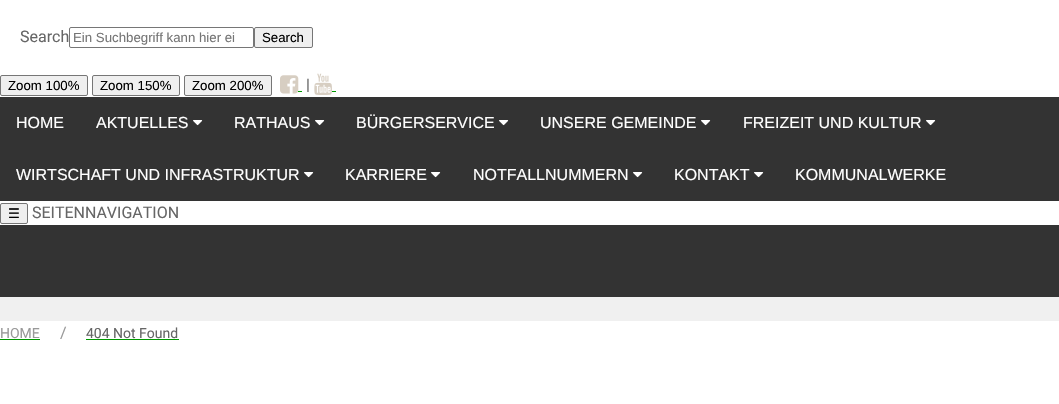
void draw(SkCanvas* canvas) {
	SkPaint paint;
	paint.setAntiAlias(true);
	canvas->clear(0xffffffff);
	SkFont f1(fontMgr->matchFamilyStyle("Roboto", SkFontStyle::Normal()), 16);
	f1.setSubpixel(true);
	paint.setColor(0xff666666);
	canvas->drawString("Search", 20, 42, f1, paint);
	paint.setStroke(true);
	paint.setStrokeWidth(1);
	paint.setColor(0xff767676);
	canvas->drawRoundRect(SkRect::MakeXYWH(69.5, 27.5, 184, 20), 1.5, 1.5, paint);
	SkFont f2(fontMgr->matchFamilyStyle("Liberation Sans", SkFontStyle::Normal()), 13.25);
	f2.setSubpixel(true);
	paint.setStroke(false);
	paint.setColor(0xff757575);
	canvas->drawString("Ein Suchbegriff kann hier ei", 73, 42, f2, paint);
	paint.setColor(0xffefefef);
	canvas->drawRoundRect(SkRect::MakeXYWH(254.5, 27.5, 58, 20), 1.5, 1.5, paint);
	paint.setStroke(true);
	paint.setColor(0xff767676);
	canvas->drawRoundRect(SkRect::MakeXYWH(254.5, 27.5, 58, 20), 1.5, 1.5, paint);
	paint.setStroke(false);
	paint.setColor(0xff000000);
	canvas->drawString("Search", 262, 42, f2, paint);
	paint.setColor(0xffefefef);
	canvas->drawRoundRect(SkRect::MakeXYWH(0.5, 75.5, 87, 20), 1.5, 1.5, paint);
	paint.setStroke(true);
	paint.setColor(0xff767676);
	canvas->drawRoundRect(SkRect::MakeXYWH(0.5, 75.5, 87, 20), 1.5, 1.5, paint);
	paint.setStroke(false);
	paint.setColor(0xff000000);
	canvas->drawString("Zoom 100%", 8, 90, f2, paint);
	paint.setColor(0xffefefef);
	canvas->drawRoundRect(SkRect::MakeXYWH(92.5, 75.5, 87, 20), 1.5, 1.5, paint);
	paint.setStroke(true);
	paint.setColor(0xff767676);
	canvas->drawRoundRect(SkRect::MakeXYWH(92.5, 75.5, 87, 20), 1.5, 1.5, paint);
	paint.setStroke(false);
	paint.setColor(0xff000000);
	canvas->drawString("Zoom 150%", 100, 90, f2, paint);
	paint.setColor(0xffefefef);
	canvas->drawRoundRect(SkRect::MakeXYWH(184.5, 75.5, 87, 20), 1.5, 1.5, paint);
	paint.setStroke(true);
	paint.setColor(0xff767676);
	canvas->drawRoundRect(SkRect::MakeXYWH(184.5, 75.5, 87, 20), 1.5, 1.5, paint);
	paint.setStroke(false);
	paint.setColor(0xff000000);
	canvas->drawString("Zoom 200%", 192, 90, f2, paint);
	canvas->drawImageRect(SkImages::DeferredFromEncodedData(SkData::MakeFromFileName("img1.png")), SkRect::MakeXYWH(280, 75, 19, 19), SkSamplingOptions());
	paint.setColor(0xff009900);
	canvas->drawRect(SkRect::MakeXYWH(298, 91, 4, 1), paint);
	paint.setColor(0xff666666);
	canvas->drawString("|", 306, 90, f1, paint);
	canvas->drawImageRect(SkImages::DeferredFromEncodedData(SkData::MakeFromFileName("img2.png")), SkRect::MakeXYWH(314, 73, 18, 22), SkSamplingOptions());
	paint.setColor(0xff009900);
	canvas->drawRect(SkRect::MakeXYWH(332, 91, 4, 1), paint);
	paint.setColor(0xff333333);
	canvas->drawRect(SkRect::MakeXYWH(0, 97, 1059, 104), paint);
	SkFont f3(fontMgr->matchFamilyStyle("Liberation Sans", SkFontStyle::Normal()), 16);
	f3.setSubpixel(true);
	paint.setColor(0xffffffff);
	canvas->drawString("HOME", 16, 128, f3, paint);
	canvas->drawString("AKTUELLES", 96, 128, f3, paint);
	canvas->drawImageRect(SkImages::DeferredFromEncodedData(SkData::MakeFromFileName("img3.png")), SkRect::MakeXYWH(193, 120, 10, 6), SkSamplingOptions());
	canvas->drawString("RATHAUS", 234, 128, f3, paint);
	canvas->drawImageRect(SkImages::DeferredFromEncodedData(SkData::MakeFromFileName("img3.png")), SkRect::MakeXYWH(315, 120, 10, 6), SkSamplingOptions());
	canvas->drawString("BÜRGERSERVICE", 356, 128, f3, paint);
	canvas->drawImageRect(SkImages::DeferredFromEncodedData(SkData::MakeFromFileName("img3.png")), SkRect::MakeXYWH(499, 120, 10, 6), SkSamplingOptions());
	canvas->drawString("UNSERE GEMEINDE", 540, 128, f3, paint);
	canvas->drawImageRect(SkImages::DeferredFromEncodedData(SkData::MakeFromFileName("img3.png")), SkRect::MakeXYWH(701, 120, 10, 6), SkSamplingOptions());
	canvas->drawString("FREIZEIT UND KULTUR", 743, 128, f3, paint);
	canvas->drawImageRect(SkImages::DeferredFromEncodedData(SkData::MakeFromFileName("img3.png")), SkRect::MakeXYWH(926, 120, 10, 6), SkSamplingOptions());
	canvas->drawString("WIRTSCHAFT UND INFRASTRUKTUR", 16, 180, f3, paint);
	canvas->drawImageRect(SkImages::DeferredFromEncodedData(SkData::MakeFromFileName("img3.png")), SkRect::MakeXYWH(304, 172, 10, 6), SkSamplingOptions());
	canvas->drawString("KARRIERE", 345, 180, f3, paint);
	canvas->drawImageRect(SkImages::DeferredFromEncodedData(SkData::MakeFromFileName("img3.png")), SkRect::MakeXYWH(431, 172, 10, 6), SkSamplingOptions());
	canvas->drawString("NOTFALLNUMMERN", 473, 180, f3, paint);
	canvas->drawImageRect(SkImages::DeferredFromEncodedData(SkData::MakeFromFileName("img3.png")), SkRect::MakeXYWH(633, 172, 10, 6), SkSamplingOptions());
	canvas->drawString("KONTAKT", 674, 180, f3, paint);
	canvas->drawImageRect(SkImages::DeferredFromEncodedData(SkData::MakeFromFileName("img3.png")), SkRect::MakeXYWH(754, 172, 10, 6), SkSamplingOptions());
	canvas->drawString("KOMMUNALWERKE", 795, 180, f3, paint);
	paint.setColor(0xffefefef);
	canvas->drawRoundRect(SkRect::MakeXYWH(0.5, 203.5, 27, 20), 1.5, 1.5, paint);
	paint.setStroke(true);
	paint.setColor(0xff767676);
	canvas->drawRoundRect(SkRect::MakeXYWH(0.5, 203.5, 27, 20), 1.5, 1.5, paint);
	SkFont f4(fontMgr->matchFamilyStyle("DejaVu Sans", SkFontStyle::Normal()), 13.25);
	f4.setSubpixel(true);
	paint.setStroke(false);
	paint.setColor(0xff000000);
	canvas->drawString("☰", 8, 218, f4, paint);
	paint.setColor(0xff666666);
	canvas->drawString("SEITENNAVIGATION", 32, 218, f1, paint);
	paint.setColor(0xff333333);
	canvas->drawRect(SkRect::MakeXYWH(0, 225, 1059, 72), paint);
	paint.setColor(0xfff0f0f0);
	canvas->drawRect(SkRect::MakeXYWH(0, 297, 1059, 24), paint);
	SkFont f5(fontMgr->matchFamilyStyle("Roboto", SkFontStyle::Normal()), 14);
	f5.setSubpixel(true);
	paint.setColor(0xff999999);
	canvas->drawString("HOME", 0, 338, f5, paint);
	paint.setColor(0xff009900);
	canvas->drawRect(SkRect::MakeXYWH(0, 339, 40, 1), paint);
	paint.setColor(0xff999999);
	canvas->drawString("/", 60, 338, f1, paint);
	paint.setColor(0xff666666);
	canvas->drawString("404 Not Found", 86, 338, f5, paint);
	paint.setColor(0xff009900);
	canvas->drawRect(SkRect::MakeXYWH(86, 339, 93, 1), paint);
}
